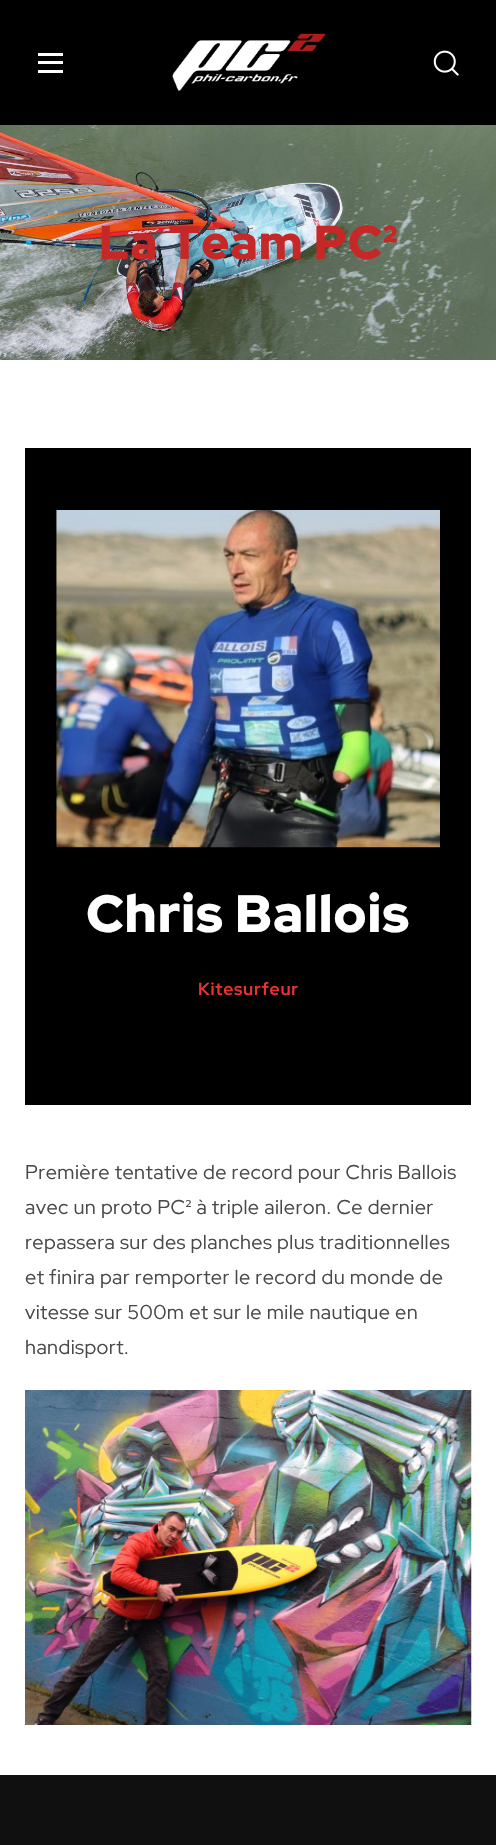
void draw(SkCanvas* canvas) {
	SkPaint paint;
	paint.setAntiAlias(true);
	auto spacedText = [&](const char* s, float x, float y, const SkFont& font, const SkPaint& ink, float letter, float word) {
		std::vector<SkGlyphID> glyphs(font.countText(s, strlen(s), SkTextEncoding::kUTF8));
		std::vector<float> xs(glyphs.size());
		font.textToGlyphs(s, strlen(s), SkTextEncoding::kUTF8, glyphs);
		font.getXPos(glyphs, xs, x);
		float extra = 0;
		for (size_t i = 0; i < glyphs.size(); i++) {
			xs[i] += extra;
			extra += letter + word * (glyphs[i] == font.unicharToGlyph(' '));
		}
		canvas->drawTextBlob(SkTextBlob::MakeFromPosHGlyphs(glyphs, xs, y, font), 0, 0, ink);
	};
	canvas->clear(0xffffffff);
	paint.setColor(0xff000000);
	canvas->drawRect(SkRect::MakeXYWH(0, 0, 496, 125), paint);
	paint.setColor(0xffffffff);
	canvas->drawRect(SkRect::MakeXYWH(38, 53, 25, 3), paint);
	canvas->drawRect(SkRect::MakeXYWH(38, 61, 25, 3), paint);
	canvas->drawRect(SkRect::MakeXYWH(38, 70, 25, 3), paint);
	canvas->drawImageRect(SkImages::DeferredFromEncodedData(SkData::MakeFromFileName("img1.png")), SkRect::MakeXYWH(172, 33, 154, 58), SkSamplingOptions());
	canvas->drawImageRect(SkImages::DeferredFromEncodedData(SkData::MakeFromFileName("img2.png")), SkRect::MakeXYWH(433, 50, 26, 26), SkSamplingOptions());
	canvas->drawImageRect(SkImages::DeferredFromEncodedData(SkData::MakeFromFileName("img3.png")), SkRect::MakeXYWH(0, 125, 496, 235), SkSamplingOptions());
	SkFont f1(fontMgr->matchFamilyStyle("Red Hat Display", SkFontStyle(900, SkFontStyle::kNormal_Width, SkFontStyle::kUpright_Slant)), 47.5);
	f1.setSubpixel(true);
	paint.setColor(0xffc62828);
	spacedText("La Team PC²", 99, 259, f1, paint, 1, 0);
	paint.setColor(0xff000000);
	canvas->drawRect(SkRect::MakeXYWH(25, 448, 446, 657), paint);
	canvas->drawImageRect(SkImages::DeferredFromEncodedData(SkData::MakeFromFileName("img4.png")), SkRect::MakeXYWH(56, 510, 384, 338), SkSamplingOptions());
	SkFont f2(fontMgr->matchFamilyStyle("Red Hat Display", SkFontStyle(900, SkFontStyle::kNormal_Width, SkFontStyle::kUpright_Slant)), 52.5);
	f2.setSubpixel(true);
	paint.setColor(0xffffffff);
	spacedText("Chris Ballois", 86, 932, f2, paint, 1, 0);
	SkFont f3(fontMgr->matchFamilyStyle("Red Hat Display", SkFontStyle::Bold()), 17.5);
	f3.setSubpixel(true);
	paint.setColor(0xffed3131);
	spacedText("Kitesurfeur", 198, 995, f3, paint, 0.75, 0);
	SkFont f4(fontMgr->matchFamilyStyle("Red Hat Display", SkFontStyle::Normal()), 20);
	f4.setSubpixel(true);
	paint.setColor(0xff494949);
	spacedText("Première tentative de record pour Chris Ballois", 25, 1179, f4, paint, 0.4, 0);
	spacedText("avec un proto PC² à triple aileron. Ce dernier", 25, 1214, f4, paint, 0.4, 0);
	spacedText("repassera sur des planches plus traditionnelles", 25, 1249, f4, paint, 0.4, 0);
	spacedText("et finira par remporter le record du monde de", 25, 1284, f4, paint, 0.4, 0);
	spacedText("vitesse sur 500m et sur le mile nautique en", 25, 1319, f4, paint, 0.4, 0);
	spacedText("handisport.", 25, 1354, f4, paint, 0.4, 0);
	canvas->drawImageRect(SkImages::DeferredFromEncodedData(SkData::MakeFromFileName("img5.png")), SkRect::MakeXYWH(25, 1390, 447, 335), SkSamplingOptions());
	paint.setColor(0xff101010);
	canvas->drawRect(SkRect::MakeXYWH(0, 1775, 496, 70), paint);
}
